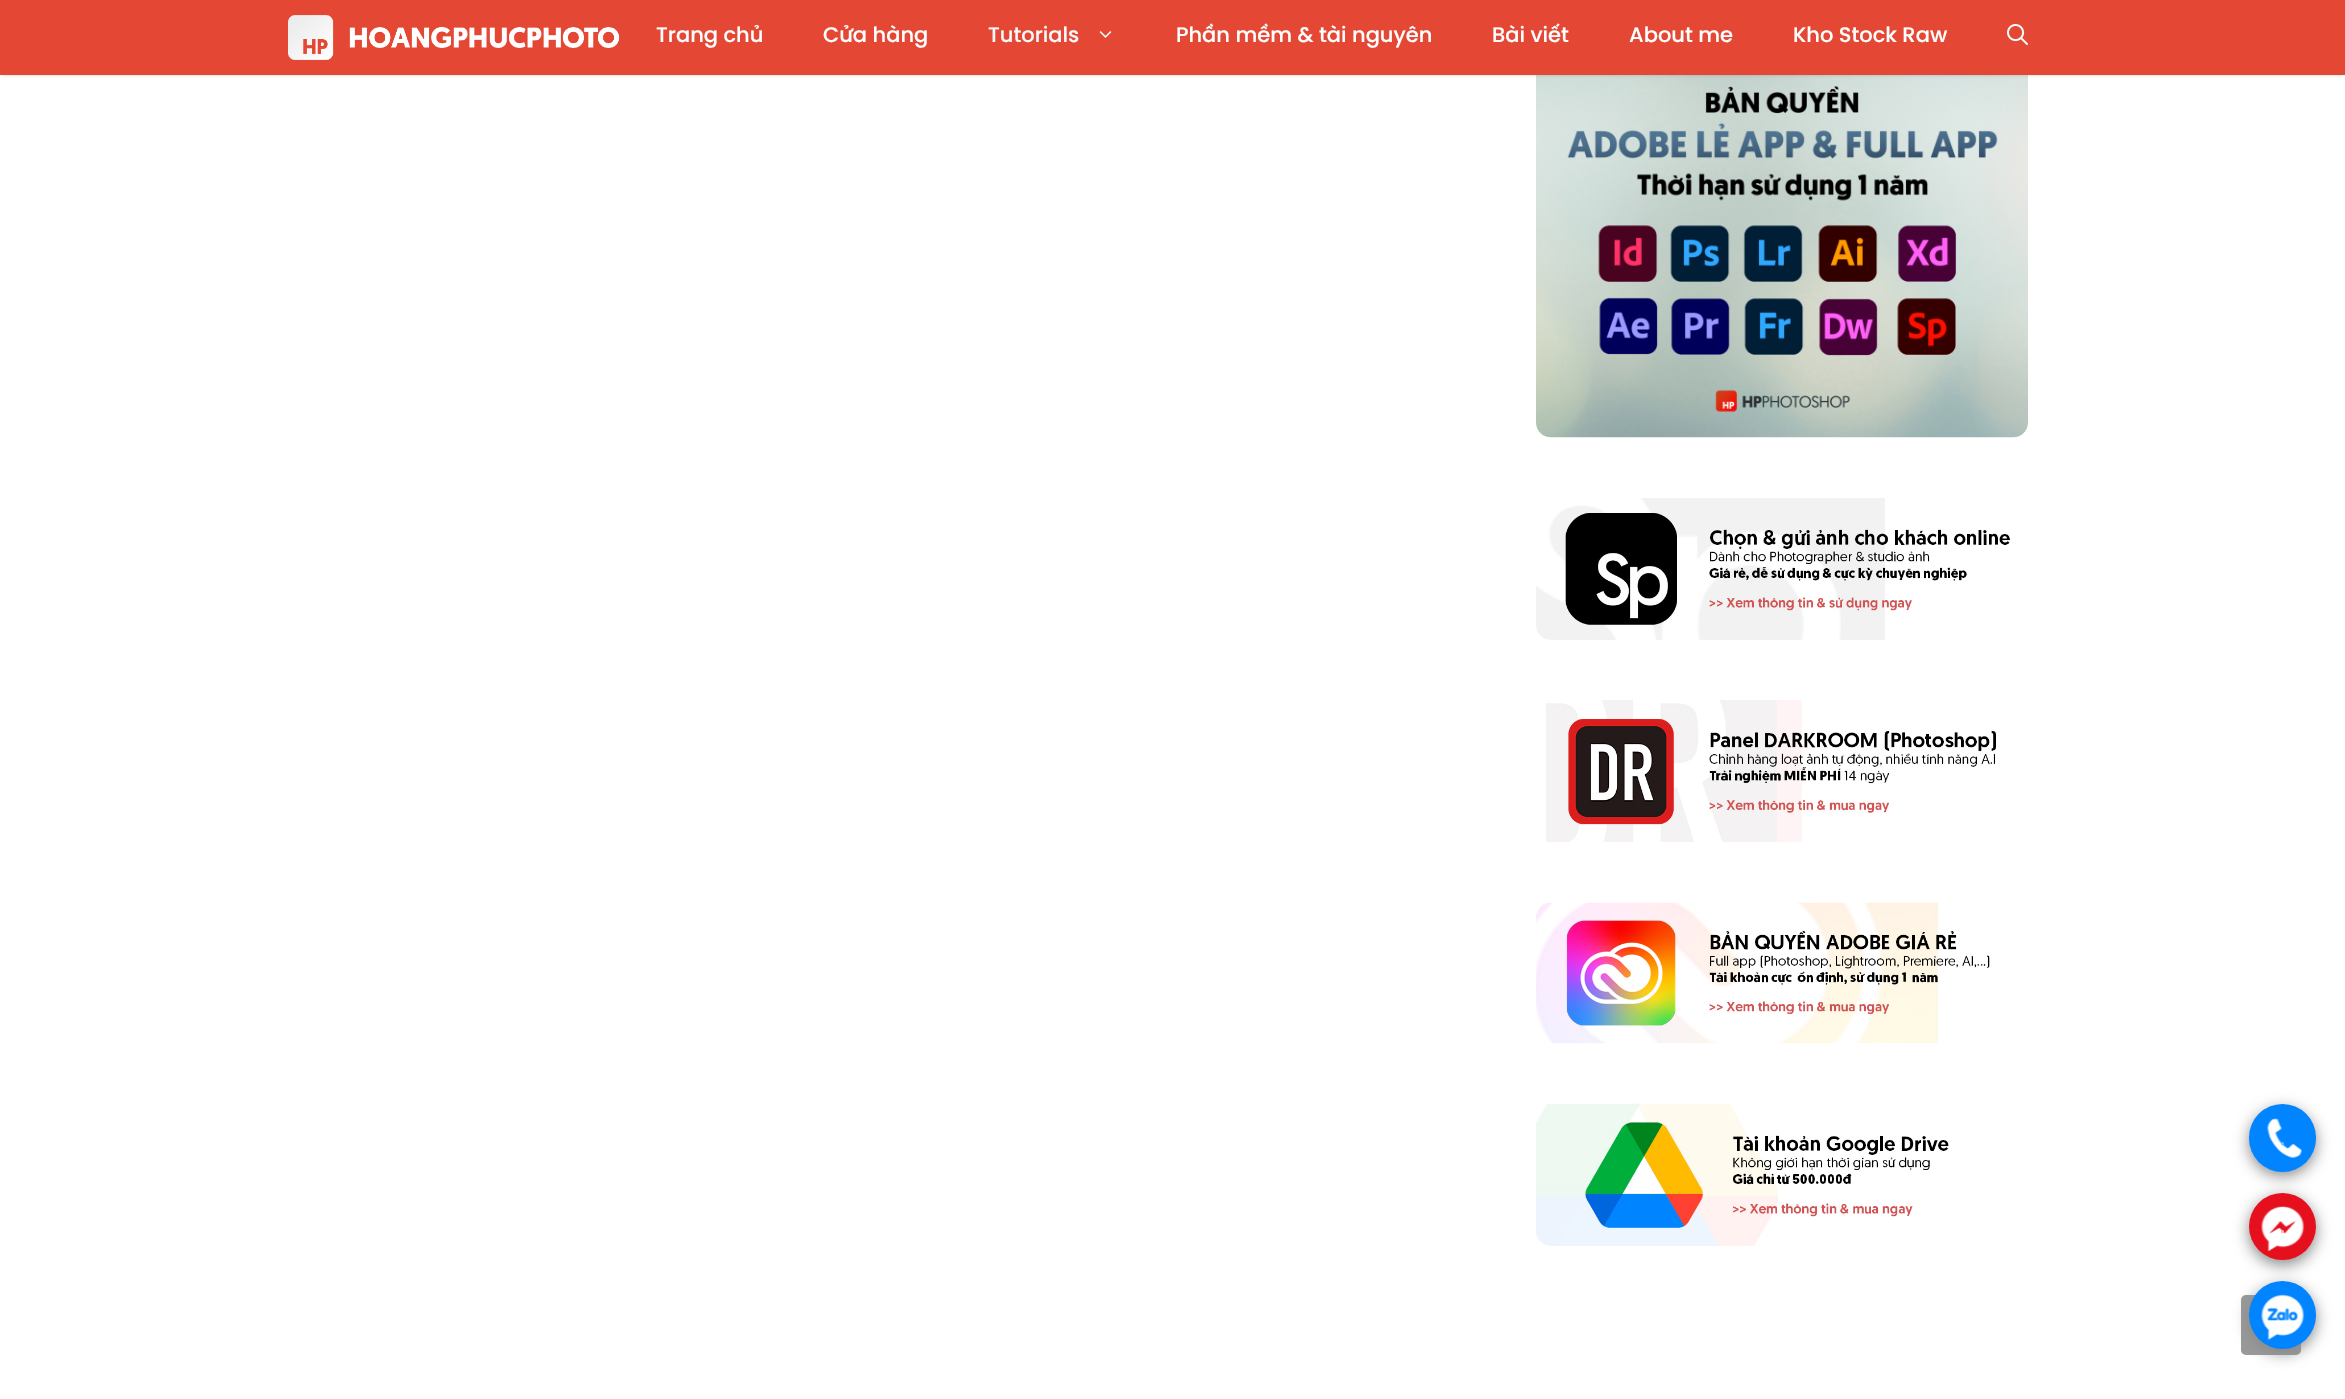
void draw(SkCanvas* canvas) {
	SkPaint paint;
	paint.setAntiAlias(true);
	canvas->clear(0xffffffff);
	canvas->drawImageRect(SkImages::DeferredFromEncodedData(SkData::MakeFromFileName("img4.png")), SkRect::MakeXYWH(1536, 75, 492, 363), SkSamplingOptions());
	paint.setColor(0x33000000);
	paint.setMaskFilter(SkMaskFilter::MakeBlur(kNormal_SkBlurStyle, 1.5));
	canvas->drawRect(SkRect::MakeXYWH(3, 6, 2340, 69), paint);
	paint.setMaskFilter(nullptr);
	paint.setColor(0xffe44834);
	canvas->drawRect(SkRect::MakeXYWH(0, 0, 2345, 75), paint);
	canvas->drawImageRect(SkImages::DeferredFromEncodedData(SkData::MakeFromFileName("img1.png")), SkRect::MakeXYWH(288, 15, 332, 45), SkSamplingOptions());
	SkFont f1(fontMgr->matchFamilyStyle("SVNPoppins", SkFontStyle(500, SkFontStyle::kNormal_Width, SkFontStyle::kUpright_Slant)), 21);
	f1.setSubpixel(true);
	paint.setColor(0xffffffff);
	canvas->drawString("Trang chủ", 656, 42, f1, paint);
	canvas->drawString("Cửa hàng", 823, 42, f1, paint);
	paint.setColor(0xfff7f8f9);
	canvas->drawString("Tutorials", 988, 42, f1, paint);
	canvas->drawImageRect(SkImages::DeferredFromEncodedData(SkData::MakeFromFileName("img2.png")), SkRect::MakeXYWH(1099, 31, 13, 7), SkSamplingOptions());
	paint.setColor(0xffffffff);
	canvas->drawString("Phần mềm & tài nguyên", 1176, 42, f1, paint);
	canvas->drawString("Bài viết", 1492, 42, f1, paint);
	canvas->drawString("About me", 1629, 42, f1, paint);
	canvas->drawString("Kho Stock Raw", 1793, 42, f1, paint);
	canvas->drawImageRect(SkImages::DeferredFromEncodedData(SkData::MakeFromFileName("img3.png")), SkRect::MakeXYWH(2007, 24, 21, 21), SkSamplingOptions());
	canvas->drawImageRect(SkImages::DeferredFromEncodedData(SkData::MakeFromFileName("img5.png")), SkRect::MakeXYWH(1536, 498, 474, 142), SkSamplingOptions());
	canvas->drawImageRect(SkImages::DeferredFromEncodedData(SkData::MakeFromFileName("img6.png")), SkRect::MakeXYWH(1546, 700, 450, 142), SkSamplingOptions());
	canvas->drawImageRect(SkImages::DeferredFromEncodedData(SkData::MakeFromFileName("img7.png")), SkRect::MakeXYWH(1536, 902, 454, 142), SkSamplingOptions());
	canvas->drawImageRect(SkImages::DeferredFromEncodedData(SkData::MakeFromFileName("img8.png")), SkRect::MakeXYWH(1536, 1103, 413, 143), SkSamplingOptions());
	paint.setColor(0xff888888);
	paint.setMaskFilter(SkMaskFilter::MakeBlur(kNormal_SkBlurStyle, 7.5));
	canvas->drawRoundRect(SkRect::MakeXYWH(2249, 1109, 67, 67), 33.5, 33.5, paint);
	paint.setMaskFilter(nullptr);
	paint.setColor(0xff0084ff);
	canvas->drawRoundRect(SkRect::MakeXYWH(2249, 1104, 67, 68), 33.5, 33.5, paint);
	canvas->drawImageRect(SkImages::DeferredFromEncodedData(SkData::MakeFromFileName("img9.png")), SkRect::MakeXYWH(2267, 1118, 35, 40), SkSamplingOptions());
	SkFont f2(fontMgr->matchFamilyStyle("SVNPoppins", SkFontStyle::Normal()), 24);
	f2.setSubpixel(true);
	paint.setColor(0xff72bbff);
	canvas->drawString(".", 2280, 1145, f2, paint);
	paint.setColor(0xff888888);
	paint.setMaskFilter(SkMaskFilter::MakeBlur(kNormal_SkBlurStyle, 7.5));
	canvas->drawRoundRect(SkRect::MakeXYWH(2249, 1197, 67, 68), 33.5, 33.5, paint);
	paint.setMaskFilter(nullptr);
	paint.setColor(0xffe60f1e);
	canvas->drawCircle(2282.5, 1226.5, 33.5, paint);
	canvas->drawImageRect(SkImages::DeferredFromEncodedData(SkData::MakeFromFileName("img10.png")), SkRect::MakeXYWH(2261, 1206, 44, 45), SkSamplingOptions());
	paint.setColor(0xfff8bcc0);
	canvas->drawString(".", 2280, 1233, f2, paint);
	paint.setColor(0xff999999);
	canvas->drawRoundRect(SkRect::MakeXYWH(2241, 1295, 60, 60), 5, 5, paint);
	paint.setColor(0xff888888);
	paint.setMaskFilter(SkMaskFilter::MakeBlur(kNormal_SkBlurStyle, 7.5));
	canvas->drawRoundRect(SkRect::MakeXYWH(2249, 1286, 67, 67), 33.5, 33.5, paint);
	paint.setMaskFilter(nullptr);
	paint.setColor(0xff0084ff);
	canvas->drawRoundRect(SkRect::MakeXYWH(2249, 1281, 67, 68), 33.5, 33.5, paint);
	canvas->drawImageRect(SkImages::DeferredFromEncodedData(SkData::MakeFromFileName("img11.png")), SkRect::MakeXYWH(2261, 1294, 44, 46), SkSamplingOptions());
}
